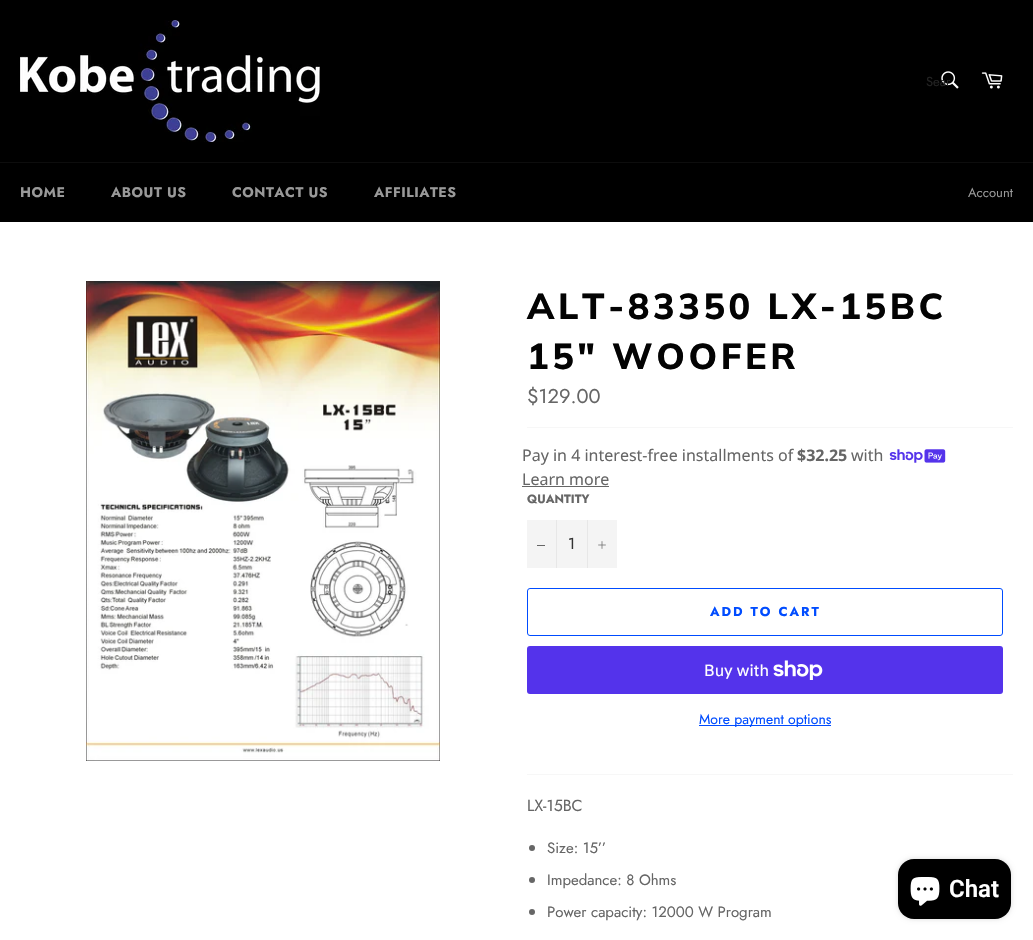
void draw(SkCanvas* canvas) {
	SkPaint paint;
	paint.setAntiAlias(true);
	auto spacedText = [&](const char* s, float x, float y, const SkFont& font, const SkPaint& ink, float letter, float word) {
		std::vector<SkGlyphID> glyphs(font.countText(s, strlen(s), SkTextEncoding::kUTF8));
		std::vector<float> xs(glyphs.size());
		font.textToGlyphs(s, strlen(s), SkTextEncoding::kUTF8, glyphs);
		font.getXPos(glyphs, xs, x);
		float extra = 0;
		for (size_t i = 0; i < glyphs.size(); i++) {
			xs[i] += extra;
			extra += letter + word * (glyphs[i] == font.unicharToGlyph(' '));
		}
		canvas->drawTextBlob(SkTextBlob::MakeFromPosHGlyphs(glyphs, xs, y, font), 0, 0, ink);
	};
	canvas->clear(0xff000000);
	canvas->drawImageRect(SkImages::DeferredFromEncodedData(SkData::MakeFromFileName("img1.png")), SkRect::MakeXYWH(20, 20, 300, 122), SkSamplingOptions());
	canvas->drawImageRect(SkImages::DeferredFromEncodedData(SkData::MakeFromFileName("img2.png")), SkRect::MakeXYWH(941, 71, 18, 18), SkSamplingOptions());
	SkFont f1(fontMgr->matchFamilyStyle("Jost", SkFontStyle::Normal()), 13);
	f1.setSubpixel(true);
	paint.setColor(0xff232323);
	canvas->drawString("Sear", 926, 86, f1, paint);
	canvas->drawImageRect(SkImages::DeferredFromEncodedData(SkData::MakeFromFileName("img3.png")), SkRect::MakeXYWH(981, 72, 22, 17), SkSamplingOptions());
	paint.setColor(0xff0d0d0d);
	canvas->drawRect(SkRect::MakeXYWH(0, 162, 1033, 1), paint);
	SkFont f2(fontMgr->matchFamilyStyle("Jost", SkFontStyle::Bold()), 14);
	f2.setSubpixel(true);
	paint.setColor(0xff999999);
	spacedText("HOME", 20, 197, f2, paint, 0.5, 0);
	spacedText("ABOUT US", 111, 197, f2, paint, 0.5, 0);
	spacedText("CONTACT US", 232, 197, f2, paint, 0.5, 0);
	spacedText("AFFILIATES", 374, 197, f2, paint, 0.5, 0);
	canvas->drawString("Account", 968, 197, f1, paint);
	paint.setColor(0xffffffff);
	canvas->drawRect(SkRect::MakeXYWH(0, 222, 1033, 718), paint);
	canvas->drawImageRect(SkImages::DeferredFromEncodedData(SkData::MakeFromFileName("img4.png")), SkRect::MakeXYWH(86, 281, 354, 480), SkSamplingOptions());
	SkFont f3(fontMgr->matchFamilyStyle("Muli", SkFontStyle(800, SkFontStyle::kNormal_Width, SkFontStyle::kUpright_Slant)), 36);
	f3.setSubpixel(true);
	paint.setColor(0xff030303);
	spacedText("ALT-83350 LX-15BC", 527, 319, f3, paint, 3.6, 0);
	spacedText("15\" WOOFER", 527, 369, f3, paint, 3.6, 0);
	SkFont f4(fontMgr->matchFamilyStyle("Jost", SkFontStyle::Normal()), 20);
	f4.setSubpixel(true);
	paint.setColor(0xff666666);
	canvas->drawString("$129.00", 527, 403, f4, paint);
	paint.setColor(0xfff7f7f7);
	canvas->drawRect(SkRect::MakeXYWH(527, 427, 486, 1), paint);
	SkFont f5(fontMgr->matchFamilyStyle("Noto Sans", SkFontStyle::Normal()), 16);
	f5.setSubpixel(true);
	paint.setColor(0xff666666);
	canvas->drawString("Pay in 4 interest-free installments of", 522, 461, f5, paint);
	SkFont f6(fontMgr->matchFamilyStyle("Noto Sans", SkFontStyle::Bold()), 16);
	f6.setSubpixel(true);
	canvas->drawString("$32.25", 797, 461, f6, paint);
	canvas->drawString("with", 851, 461, f5, paint);
	canvas->drawImageRect(SkImages::DeferredFromEncodedData(SkData::MakeFromFileName("img5.png")), SkRect::MakeXYWH(889, 449, 57, 14), SkSamplingOptions());
	canvas->drawString("Learn more", 522, 485, f5, paint);
	canvas->drawRect(SkRect::MakeXYWH(522, 486, 87, 1), paint);
	SkFont f7(fontMgr->matchFamilyStyle("Jost", SkFontStyle::Bold()), 12);
	f7.setSubpixel(true);
	canvas->drawString("QUANTITY", 527, 503, f7, paint);
	paint.setColor(0xfff4f4f4);
	canvas->drawRect(SkRect::MakeXYWH(527, 520, 90, 48), paint);
	paint.setColor(0xffe7e7e7);
	canvas->drawRect(SkRect::MakeXYWH(556, 520, 1, 48), paint);
	paint.setColor(0xff666666);
	canvas->drawRect(SkRect::MakeXYWH(537, 545, 8, 1), paint);
	SkFont f8(fontMgr->matchFamilyStyle("Jost", SkFontStyle::Normal()), 16);
	f8.setSubpixel(true);
	paint.setColor(0xff333333);
	canvas->drawString("1", 568, 549, f8, paint);
	paint.setColor(0xffe7e7e7);
	canvas->drawRect(SkRect::MakeXYWH(587, 520, 1, 48), paint);
	canvas->drawImageRect(SkImages::DeferredFromEncodedData(SkData::MakeFromFileName("img6.png")), SkRect::MakeXYWH(598, 541, 8, 8), SkSamplingOptions());
	paint.setStroke(true);
	paint.setStrokeWidth(1);
	paint.setColor(0xff004cff);
	canvas->drawRoundRect(SkRect::MakeXYWH(527.5, 588.5, 475, 47), 2.5, 2.5, paint);
	SkFont f9(fontMgr->matchFamilyStyle("Jost", SkFontStyle::Bold()), 13);
	f9.setSubpixel(true);
	paint.setStroke(false);
	spacedText("ADD TO CART", 710, 616, f9, paint, 2, 0);
	paint.setColor(0xff5433eb);
	canvas->drawRoundRect(SkRect::MakeXYWH(527, 646, 476, 48), 3, 3, paint);
	SkFont f10(fontMgr->matchFamilyStyle("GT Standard", SkFontStyle::Normal()), 16);
	f10.setSubpixel(true);
	paint.setColor(0xffffffff);
	canvas->drawString("Buy with", 704, 676, f10, paint);
	canvas->drawImageRect(SkImages::DeferredFromEncodedData(SkData::MakeFromFileName("img7.png")), SkRect::MakeXYWH(773, 660, 50, 20), SkSamplingOptions());
	paint.setColor(0xff004cff);
	canvas->drawRect(SkRect::MakeXYWH(699, 725, 132, 1), paint);
	SkFont f11(fontMgr->matchFamilyStyle("Jost", SkFontStyle::Normal()), 14);
	f11.setSubpixel(true);
	canvas->drawString("More payment options", 699, 724, f11, paint);
	paint.setColor(0xfff7f7f7);
	canvas->drawRect(SkRect::MakeXYWH(527, 774, 486, 1), paint);
	paint.setColor(0xff666666);
	canvas->drawString("LX-15BC", 527, 811, f8, paint);
	canvas->drawCircle(532, 848, 3, paint);
	SkFont f12(fontMgr->matchFamilyStyle("Jost", SkFontStyle::Normal()), 15);
	f12.setSubpixel(true);
	canvas->drawString("Size: 15’’", 547, 853, f12, paint);
	canvas->drawCircle(532, 880, 3, paint);
	canvas->drawString("Impedance: 8 Ohms", 547, 885, f12, paint);
	canvas->drawCircle(532, 912, 3, paint);
	canvas->drawString("Power capacity: 12000 W Program", 547, 917, f12, paint);
	paint.setColor(0x26000000);
	paint.setMaskFilter(SkMaskFilter::MakeBlur(kNormal_SkBlurStyle, 2.5));
	canvas->drawRoundRect(SkRect::MakeXYWH(898, 859, 113, 60), 16, 16, paint);
	paint.setMaskFilter(nullptr);
	paint.setColor(0xff000000);
	canvas->drawRoundRect(SkRect::MakeXYWH(898, 859, 113, 60), 16, 16, paint);
	canvas->drawImageRect(SkImages::DeferredFromEncodedData(SkData::MakeFromFileName("img8.png")), SkRect::MakeXYWH(910, 877, 30, 29), SkSamplingOptions());
	SkFont f13(fontMgr->matchFamilyStyle("Roboto", SkFontStyle(600, SkFontStyle::kNormal_Width, SkFontStyle::kUpright_Slant)), 24);
	f13.setSubpixel(true);
	paint.setColor(0xffffffff);
	canvas->drawString("Chat", 949, 897, f13, paint);
}
